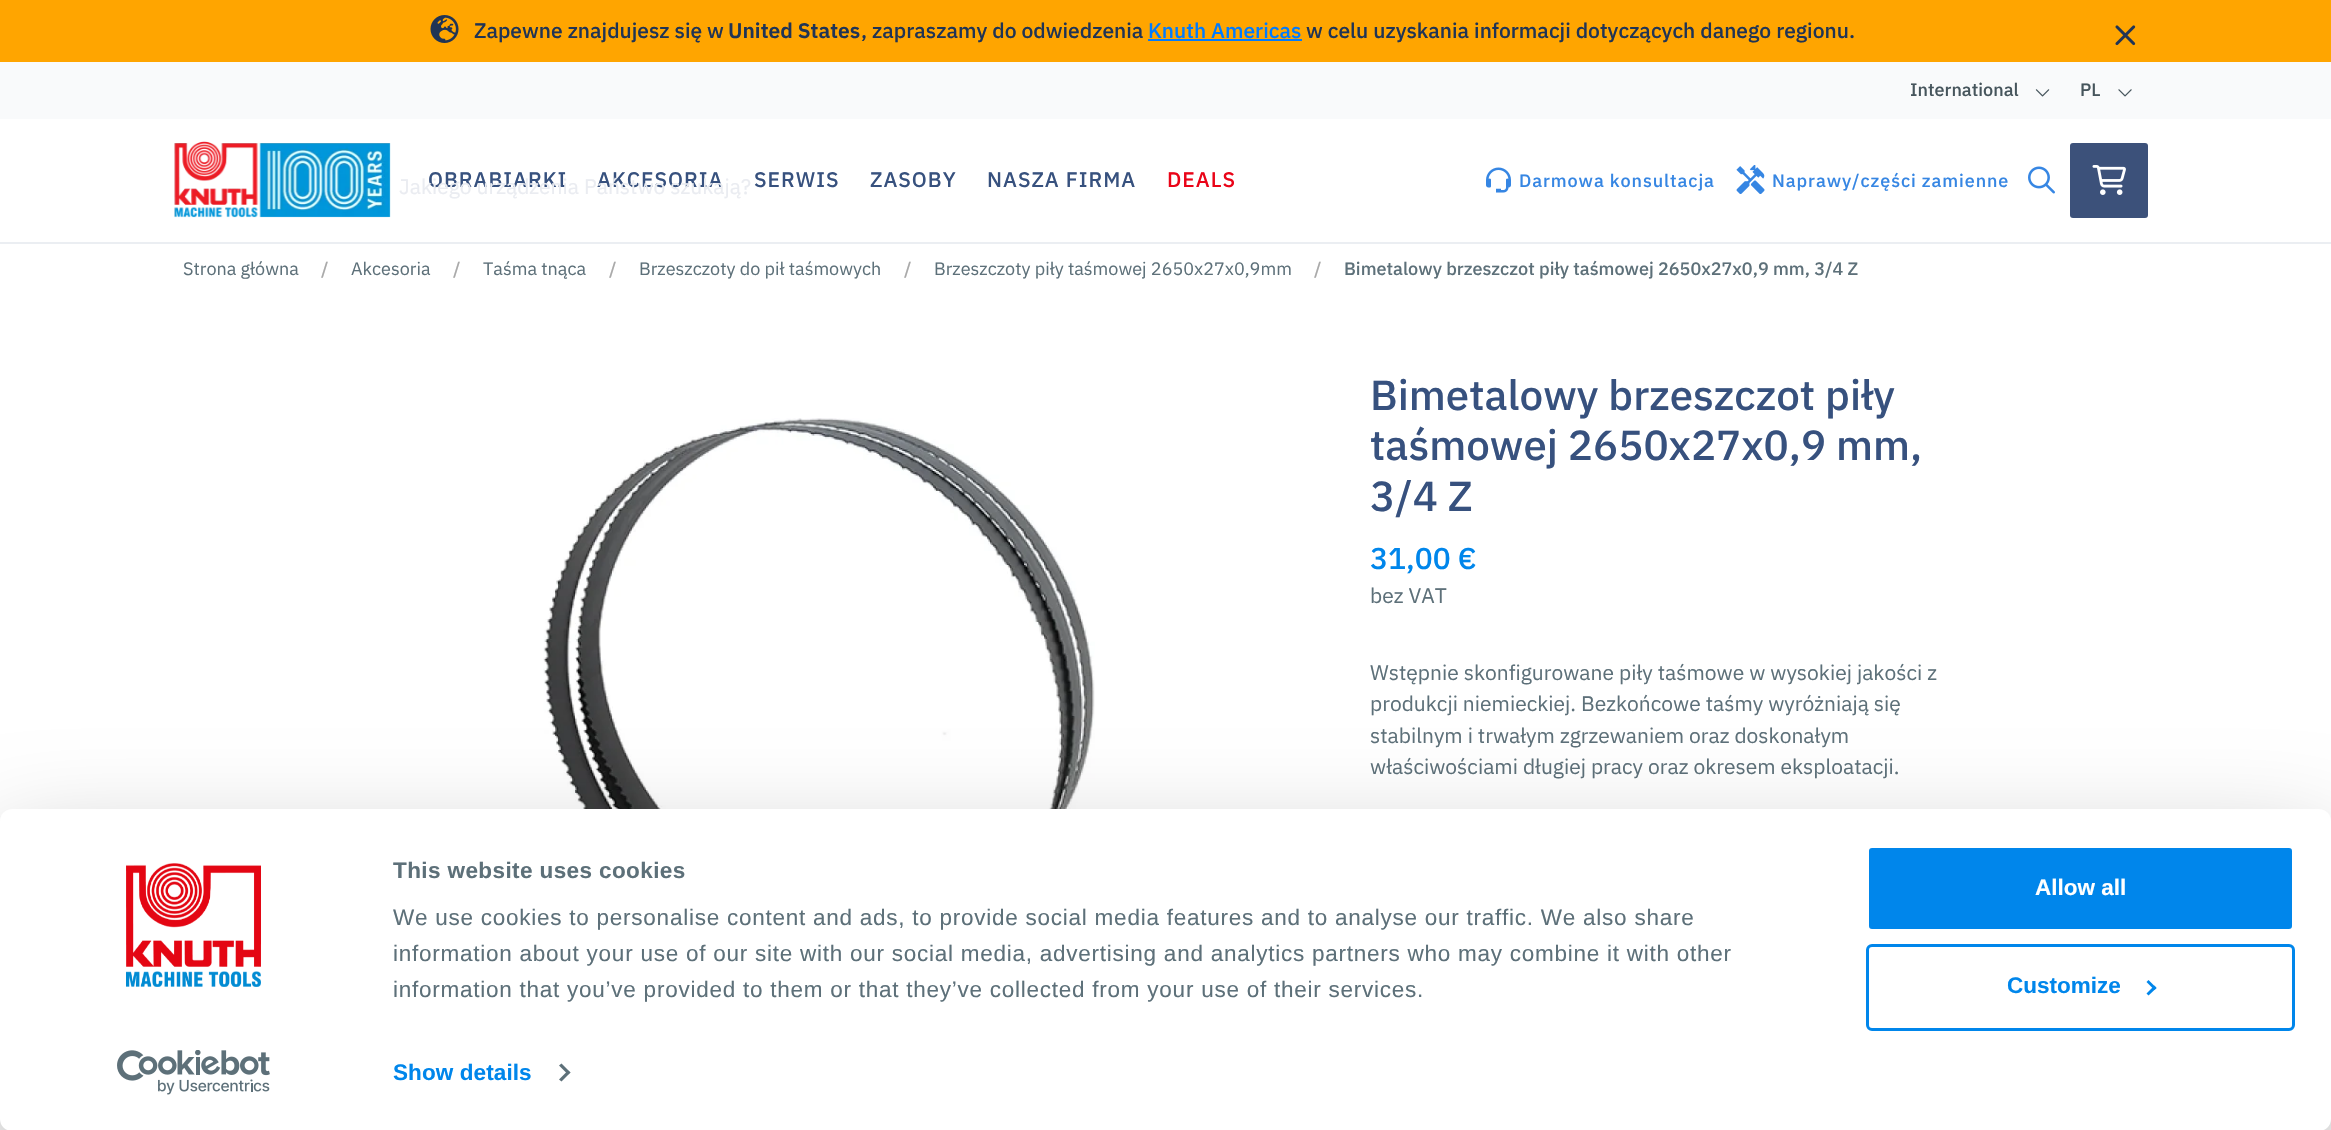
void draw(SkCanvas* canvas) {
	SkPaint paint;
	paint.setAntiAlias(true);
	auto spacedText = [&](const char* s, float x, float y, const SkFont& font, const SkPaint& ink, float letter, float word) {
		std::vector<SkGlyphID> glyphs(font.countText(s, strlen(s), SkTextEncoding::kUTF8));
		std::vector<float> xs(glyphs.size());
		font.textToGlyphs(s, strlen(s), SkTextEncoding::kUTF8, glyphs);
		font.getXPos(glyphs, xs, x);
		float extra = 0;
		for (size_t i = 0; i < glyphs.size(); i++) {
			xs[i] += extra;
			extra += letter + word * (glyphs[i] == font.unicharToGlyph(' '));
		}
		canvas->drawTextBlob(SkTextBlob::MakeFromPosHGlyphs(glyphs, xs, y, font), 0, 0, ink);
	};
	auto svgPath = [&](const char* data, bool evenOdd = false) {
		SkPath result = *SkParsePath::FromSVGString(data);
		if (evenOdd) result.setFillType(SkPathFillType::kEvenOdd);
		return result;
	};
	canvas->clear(0xffffffff);
	paint.setColor(0xffffa500);
	canvas->drawRect(SkRect::MakeXYWH(0, 0, 2331, 62), paint);
	canvas->drawImageRect(SkImages::DeferredFromEncodedData(SkData::MakeFromFileName("img1.png")), SkRect::MakeXYWH(430, 15, 29, 28), SkSamplingOptions());
	SkFont f1(fontMgr->matchFamilyStyle("IBM Plex Sans", SkFontStyle(500, SkFontStyle::kNormal_Width, SkFontStyle::kUpright_Slant)), 21);
	f1.setSubpixel(true);
	paint.setColor(0xff203455);
	canvas->drawString("Zapewne znajdujesz się w", 474, 38, f1, paint);
	SkFont f2(fontMgr->matchFamilyStyle("IBM Plex Sans", SkFontStyle(600, SkFontStyle::kNormal_Width, SkFontStyle::kUpright_Slant)), 21);
	f2.setSubpixel(true);
	canvas->drawString("United States", 728, 38, f2, paint);
	canvas->drawString(", zapraszamy do odwiedzenia", 861, 38, f1, paint);
	paint.setColor(0xff007bff);
	canvas->drawString("Knuth Americas", 1148, 38, f1, paint);
	canvas->drawRect(SkRect::MakeXYWH(1148, 39, 154, 2), paint);
	paint.setColor(0xff203455);
	canvas->drawString("w celu uzyskania informacji dotyczących danego regionu.", 1306, 38, f1, paint);
	canvas->drawImageRect(SkImages::DeferredFromEncodedData(SkData::MakeFromFileName("img2.png")), SkRect::MakeXYWH(2115, 25, 21, 21), SkSamplingOptions());
	paint.setColor(0xfff9fafb);
	canvas->drawRect(SkRect::MakeXYWH(0, 62, 2331, 57), paint);
	SkFont f3(fontMgr->matchFamilyStyle("IBM Plex Sans", SkFontStyle(500, SkFontStyle::kNormal_Width, SkFontStyle::kUpright_Slant)), 18);
	f3.setSubpixel(true);
	paint.setColor(0xff46555c);
	canvas->drawString("International", 1910, 96, f3, paint);
	canvas->drawImageRect(SkImages::DeferredFromEncodedData(SkData::MakeFromFileName("img3.png")), SkRect::MakeXYWH(2035, 89, 15, 8), SkSamplingOptions());
	canvas->drawString("PL", 2080, 96, f3, paint);
	canvas->drawImageRect(SkImages::DeferredFromEncodedData(SkData::MakeFromFileName("img4.png")), SkRect::MakeXYWH(2118, 89, 14, 8), SkSamplingOptions());
	paint.setColor(0xffebeef2);
	canvas->drawRect(SkRect::MakeXYWH(0, 242, 2331, 2), paint);
	canvas->drawImageRect(SkImages::DeferredFromEncodedData(SkData::MakeFromFileName("img5.png")), SkRect::MakeXYWH(174, 141, 217, 77), SkSamplingOptions());
	paint.setColor(0xff37517e);
	spacedText("OBRABIARKI", 428, 187, f1, paint, 1, 0);
	spacedText("AKCESORIA", 597, 187, f1, paint, 1, 0);
	spacedText("SERWIS", 754, 187, f1, paint, 1, 0);
	spacedText("ZASOBY", 870, 187, f1, paint, 1, 0);
	spacedText("NASZA FIRMA", 987, 187, f1, paint, 1, 0);
	paint.setColor(0xffea0418);
	spacedText("DEALS", 1167, 187, f1, paint, 1, 0);
	canvas->drawImageRect(SkImages::DeferredFromEncodedData(SkData::MakeFromFileName("img6.png")), SkRect::MakeXYWH(1486, 167, 25, 26), SkSamplingOptions());
	paint.setColor(0xff3686e3);
	spacedText("Darmowa konsultacja", 1519, 187, f3, paint, 0.9, 0);
	canvas->drawImageRect(SkImages::DeferredFromEncodedData(SkData::MakeFromFileName("img7.png")), SkRect::MakeXYWH(1736, 165, 29, 29), SkSamplingOptions());
	spacedText("Naprawy/części zamienne", 1772, 187, f3, paint, 0.9, 0);
	canvas->drawImageRect(SkImages::DeferredFromEncodedData(SkData::MakeFromFileName("img8.png")), SkRect::MakeXYWH(2028, 166, 27, 28), SkSamplingOptions());
	paint.setColor(0xff3c517a);
	canvas->drawRoundRect(SkRect::MakeXYWH(2070, 143, 78, 75), 3, 3, paint);
	canvas->drawImageRect(SkImages::DeferredFromEncodedData(SkData::MakeFromFileName("img9.png")), SkRect::MakeXYWH(2092, 165, 34, 30), SkSamplingOptions());
	SkFont f4(fontMgr->matchFamilyStyle("IBM Plex Sans", SkFontStyle::Normal()), 21);
	f4.setSubpixel(true);
	paint.setColor(0xffeaecf1);
	canvas->drawString("Jakiego urządzenia Państwo szukają?", 399, 194, f4, paint);
	SkFont f5(fontMgr->matchFamilyStyle("IBM Plex Sans", SkFontStyle::Normal()), 18);
	f5.setSubpixel(true);
	paint.setColor(0xff5d7079);
	canvas->drawString("Strona główna", 183, 275, f5, paint);
	paint.setColor(0xffaaaaaa);
	canvas->drawString("/", 321, 275, f3, paint);
	paint.setColor(0xff5d7079);
	canvas->drawString("Akcesoria", 351, 275, f5, paint);
	paint.setColor(0xffaaaaaa);
	canvas->drawString("/", 453, 275, f3, paint);
	paint.setColor(0xff5d7079);
	canvas->drawString("Taśma tnąca", 483, 275, f5, paint);
	paint.setColor(0xffaaaaaa);
	canvas->drawString("/", 609, 275, f3, paint);
	paint.setColor(0xff5d7079);
	canvas->drawString("Brzeszczoty do pił taśmowych", 639, 275, f5, paint);
	paint.setColor(0xffaaaaaa);
	canvas->drawString("/", 904, 275, f3, paint);
	paint.setColor(0xff5d7079);
	canvas->drawString("Brzeszczoty piły taśmowej 2650x27x0,9mm", 934, 275, f5, paint);
	paint.setColor(0xffaaaaaa);
	canvas->drawString("/", 1314, 275, f3, paint);
	paint.setColor(0xff5d7079);
	canvas->drawString("Bimetalowy brzeszczot piły taśmowej 2650x27x0,9 mm, 3/4 Z", 1344, 275, f3, paint);
	canvas->drawImageRect(SkImages::DeferredFromEncodedData(SkData::MakeFromFileName("img10.png")), SkRect::MakeXYWH(543, 418, 552, 391), SkSamplingOptions());
	SkFont f6(fontMgr->matchFamilyStyle("IBM Plex Sans", SkFontStyle(500, SkFontStyle::kNormal_Width, SkFontStyle::kUpright_Slant)), 42);
	f6.setSubpixel(true);
	paint.setColor(0xff37517e);
	canvas->drawString("Bimetalowy brzeszczot piły", 1370, 410, f6, paint);
	canvas->drawString("taśmowej 2650x27x0,9 mm,", 1370, 460, f6, paint);
	canvas->drawString("3/4 Z", 1370, 511, f6, paint);
	SkFont f7(fontMgr->matchFamilyStyle("IBM Plex Sans", SkFontStyle(500, SkFontStyle::kNormal_Width, SkFontStyle::kUpright_Slant)), 30);
	f7.setSubpixel(true);
	paint.setColor(0xff0086eb);
	canvas->drawString("31,00 €", 1370, 569, f7, paint);
	paint.setColor(0xff5d7079);
	canvas->drawString("bez VAT", 1370, 603, f4, paint);
	canvas->drawString("Wstępnie skonfigurowane piły taśmowe w wysokiej jakości z", 1370, 680, f4, paint);
	canvas->drawString("produkcji niemieckiej. Bezkońcowe taśmy wyróżniają się", 1370, 711, f4, paint);
	canvas->drawString("stabilnym i trwałym zgrzewaniem oraz doskonałym", 1370, 743, f4, paint);
	canvas->drawString("właściwościami długiej pracy oraz okresem eksploatacji.", 1370, 774, f4, paint);
	paint.setColor(0x4d000000);
	paint.setMaskFilter(SkMaskFilter::MakeBlur(kNormal_SkBlurStyle, 52.5));
	canvas->drawRoundRect(SkRect::MakeXYWH(0, 854, 2331, 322), 12, 12, paint);
	paint.setMaskFilter(nullptr);
	paint.setColor(0xffffffff);
	canvas->drawRoundRect(SkRect::MakeXYWH(0, 809, 2331, 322), 12, 12, paint);
	canvas->drawImageRect(SkImages::DeferredFromEncodedData(SkData::MakeFromFileName("img11.png")), SkRect::MakeXYWH(126, 863, 135, 124), SkSamplingOptions());
	canvas->drawImageRect(SkImages::DeferredFromEncodedData(SkData::MakeFromFileName("img12.png")), SkRect::MakeXYWH(117, 1050, 153, 45), SkSamplingOptions());
	SkFont f8(fontMgr->matchFamilyStyle("Liberation Sans", SkFontStyle::Bold()), 22.5);
	f8.setSubpixel(true);
	paint.setColor(0xff5d7079);
	spacedText("This website uses cookies", 393, 878, f8, paint, 0.4, 0);
	SkFont f9(fontMgr->matchFamilyStyle("Liberation Sans", SkFontStyle::Normal()), 22.5);
	f9.setSubpixel(true);
	spacedText("We use cookies to personalise content and ads, to provide social media features and to analyse our traffic. We also share", 393, 925, f9, paint, 0.75, 0);
	spacedText("information about your use of our site with our social media, advertising and analytics partners who may combine it with other", 393, 961, f9, paint, 0.75, 0);
	spacedText("information that you’ve provided to them or that they’ve collected from your use of their services.", 393, 997, f9, paint, 0.75, 0);
	paint.setColor(0xff0086eb);
	spacedText("Show details", 393, 1080, f8, paint, 0.1, 0);
	paint.setColor(0xff5d7079);
	canvas->drawPath(svgPath("M561.5 1063.5L570.5 1072.5L568 1074.5L559 1065.5Z"), paint);
	canvas->drawPath(svgPath("M568 1070.5L570.5 1072.5L561.5 1081.5L559 1079.5Z"), paint);
	paint.setColor(0xff0086eb);
	canvas->drawRoundRect(SkRect::MakeXYWH(1867.5, 846.5, 426, 84), 4.5, 4.5, paint);
	paint.setStroke(true);
	paint.setStrokeWidth(3);
	paint.setColor(0xffffffff);
	canvas->drawRoundRect(SkRect::MakeXYWH(1867.5, 846.5, 426, 84), 4.5, 4.5, paint);
	paint.setStroke(false);
	canvas->drawString("Allow all", 2035, 895, f8, paint);
	paint.setStroke(true);
	paint.setColor(0xff0086eb);
	canvas->drawRoundRect(SkRect::MakeXYWH(1867.5, 945.5, 426, 84), 4.5, 4.5, paint);
	paint.setStroke(false);
	canvas->drawString("Customize", 2007, 993, f8, paint);
	canvas->drawPath(svgPath("M2148.5 980L2156.5 988L2154.5 990L2146.5 982Z"), paint);
	canvas->drawPath(svgPath("M2154.5 985.5L2156.5 988L2148.5 995.5L2146.5 993.5Z"), paint);
}
